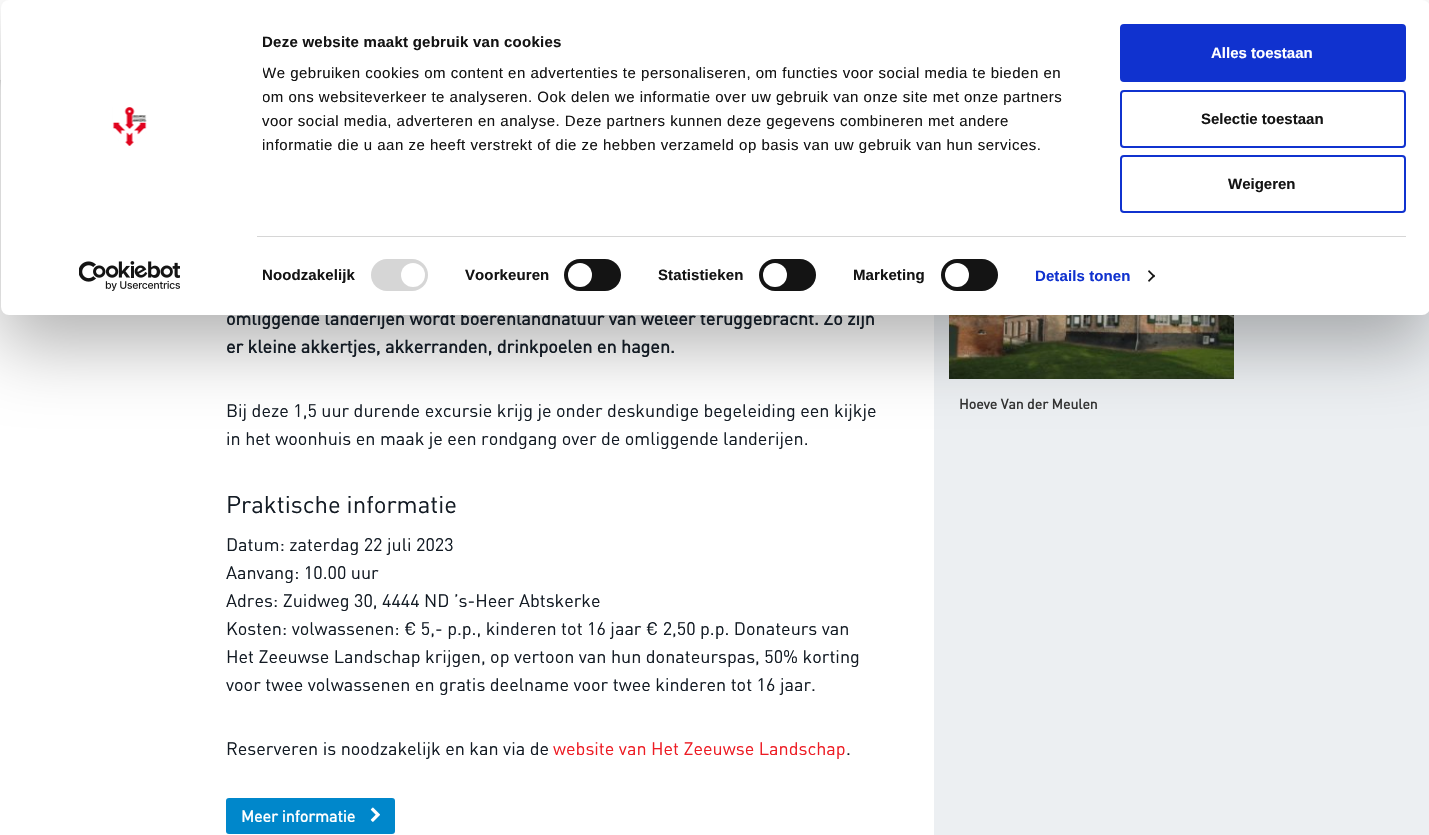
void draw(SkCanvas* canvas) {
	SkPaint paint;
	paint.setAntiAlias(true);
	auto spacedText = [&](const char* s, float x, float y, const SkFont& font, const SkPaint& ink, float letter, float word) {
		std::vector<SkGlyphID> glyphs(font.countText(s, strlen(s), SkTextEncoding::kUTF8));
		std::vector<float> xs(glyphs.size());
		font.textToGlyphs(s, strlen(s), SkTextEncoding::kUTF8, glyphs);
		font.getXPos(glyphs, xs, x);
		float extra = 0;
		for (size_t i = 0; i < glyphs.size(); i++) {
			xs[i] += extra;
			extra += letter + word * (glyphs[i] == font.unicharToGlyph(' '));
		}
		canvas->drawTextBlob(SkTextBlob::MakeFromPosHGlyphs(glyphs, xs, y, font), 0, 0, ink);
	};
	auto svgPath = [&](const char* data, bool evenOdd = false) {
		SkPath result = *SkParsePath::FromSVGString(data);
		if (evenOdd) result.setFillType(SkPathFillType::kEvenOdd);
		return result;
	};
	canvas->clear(0xffffffff);
	paint.setColor(0x59000000);
	paint.setMaskFilter(SkMaskFilter::MakeBlur(kNormal_SkBlurStyle, 5));
	canvas->drawRect(SkRect::MakeXYWH(0, 0, 1429, 80), paint);
	paint.setMaskFilter(nullptr);
	paint.setColor(0xffffffff);
	canvas->drawRect(SkRect::MakeXYWH(0, 0, 1429, 80), paint);
	paint.setColor(0xffeceff2);
	canvas->drawRect(SkRect::MakeXYWH(934, 310, 495, 525), paint);
	canvas->drawImageRect(SkImages::DeferredFromEncodedData(SkData::MakeFromFileName("img4.png")), SkRect::MakeXYWH(949, 315, 285, 64), SkSamplingOptions());
	paint.setColor(0x4d000000);
	paint.setMaskFilter(SkMaskFilter::MakeBlur(kNormal_SkBlurStyle, 35));
	canvas->drawRoundRect(SkRect::MakeXYWH(1, 30, 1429, 315), 8, 8, paint);
	paint.setMaskFilter(nullptr);
	SkFont f1(fontMgr->matchFamilyStyle("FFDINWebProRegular", SkFontStyle::Bold()), 18);
	f1.setSubpixel(true);
	paint.setColor(0xff131b24);
	canvas->drawString("omliggende landerijen wordt boerenlandnatuur van weleer teruggebracht. Zo zijn", 226, 325, f1, paint);
	paint.setColor(0xffffffff);
	canvas->drawRoundRect(SkRect::MakeXYWH(1, 0, 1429, 315), 8, 8, paint);
	canvas->drawImageRect(SkImages::DeferredFromEncodedData(SkData::MakeFromFileName("img1.png")), SkRect::MakeXYWH(112, 107, 35, 39), SkSamplingOptions());
	canvas->drawImageRect(SkImages::DeferredFromEncodedData(SkData::MakeFromFileName("img2.png")), SkRect::MakeXYWH(79, 261, 101, 30), SkSamplingOptions());
	SkFont f2(fontMgr->matchFamilyStyle("Liberation Sans", SkFontStyle::Bold()), 15);
	f2.setSubpixel(true);
	paint.setColor(0xff141414);
	spacedText("Deze website maakt gebruik van cookies", 262, 47, f2, paint, 0.25, 0);
	canvas->save();
	canvas->clipRect(SkRect::MakeXYWH(263, 30, 828, 177));
	SkFont f3(fontMgr->matchFamilyStyle("Liberation Sans", SkFontStyle::Normal()), 15);
	f3.setSubpixel(true);
	spacedText("We gebruiken cookies om content en advertenties te personaliseren, om functies voor social media te bieden en", 262, 78, f3, paint, 0.5, 0);
	spacedText("om ons websiteverkeer te analyseren. Ook delen we informatie over uw gebruik van onze site met onze partners", 262, 102, f3, paint, 0.5, 0);
	canvas->restore();
	spacedText("voor social media, adverteren en analyse. Deze partners kunnen deze gegevens combineren met andere", 262, 126, f3, paint, 0.5, 0);
	spacedText("informatie die u aan ze heeft verstrekt of die ze hebben verzameld op basis van uw gebruik van hun services.", 262, 150, f3, paint, 0.5, 0);
	paint.setColor(0xffd6d6d6);
	canvas->drawRect(SkRect::MakeXYWH(257, 236, 1149, 1), paint);
	paint.setColor(0xff141414);
	spacedText("Noodzakelijk", 262, 280, f2, paint, 0.1, 0);
	paint.setColor(0xffd6d6d6);
	canvas->drawRoundRect(SkRect::MakeXYWH(371, 259, 57, 32), 16, 16, paint);
	paint.setColor(0xffffffff);
	canvas->drawCircle(413, 275, 12, paint);
	paint.setColor(0xff141414);
	spacedText("Voorkeuren", 465, 280, f2, paint, 0.1, 0);
	canvas->drawRoundRect(SkRect::MakeXYWH(564, 259, 57, 32), 16, 16, paint);
	paint.setColor(0xffffffff);
	canvas->drawCircle(580, 275, 12, paint);
	paint.setColor(0xff141414);
	spacedText("Statistieken", 658, 280, f2, paint, 0.1, 0);
	canvas->drawRoundRect(SkRect::MakeXYWH(759, 259, 57, 32), 16, 16, paint);
	paint.setColor(0xffffffff);
	canvas->drawCircle(775, 275, 12, paint);
	paint.setColor(0xff141414);
	spacedText("Marketing", 853, 280, f2, paint, 0.1, 0);
	canvas->drawRoundRect(SkRect::MakeXYWH(941, 259, 57, 32), 16, 16, paint);
	paint.setColor(0xffffffff);
	canvas->drawCircle(957, 275, 12, paint);
	paint.setColor(0xff1032cf);
	spacedText("Details tonen", 1035, 281, f2, paint, 0.1, 0);
	paint.setColor(0xff141414);
	canvas->drawPath(svgPath("M1149 270L1155 276L1154 277.5L1148 271.5Z"), paint);
	canvas->drawPath(svgPath("M1154 274.5L1155 276L1149 282L1148 280.5Z"), paint);
	paint.setColor(0xff1032cf);
	canvas->drawRoundRect(SkRect::MakeXYWH(1121, 25, 284, 56), 3, 3, paint);
	paint.setStroke(true);
	paint.setStrokeWidth(2);
	canvas->drawRoundRect(SkRect::MakeXYWH(1121, 25, 284, 56), 3, 3, paint);
	paint.setStroke(false);
	paint.setColor(0xffffffff);
	canvas->drawString("Alles toestaan", 1211, 58, f2, paint);
	paint.setStroke(true);
	paint.setColor(0xff1032cf);
	canvas->drawRoundRect(SkRect::MakeXYWH(1121, 91, 284, 56), 3, 3, paint);
	paint.setStroke(false);
	paint.setColor(0xff141414);
	canvas->drawString("Selectie toestaan", 1201, 124, f2, paint);
	paint.setStroke(true);
	paint.setColor(0xff1032cf);
	canvas->drawRoundRect(SkRect::MakeXYWH(1121, 156, 284, 56), 3, 3, paint);
	paint.setStroke(false);
	paint.setColor(0xff141414);
	canvas->drawString("Weigeren", 1228, 189, f2, paint);
	paint.setColor(0xff131b24);
	canvas->drawString("er kleine akkertjes, akkerranden, drinkpoelen en hagen.", 226, 353, f1, paint);
	SkFont f4(fontMgr->matchFamilyStyle("FFDINWebProRegular", SkFontStyle::Normal()), 18);
	f4.setSubpixel(true);
	canvas->drawString("Bij deze 1,5 uur durende excursie krijg je onder deskundige begeleiding een kijkje", 226, 417, f4, paint);
	canvas->drawString("in het woonhuis en maak je een rondgang over de omliggende landerijen.", 226, 445, f4, paint);
	SkFont f5(fontMgr->matchFamilyStyle("FFDINWebProRegular", SkFontStyle::Normal()), 24);
	f5.setSubpixel(true);
	canvas->drawString("Praktische informatie", 226, 513, f5, paint);
	canvas->drawString("Datum: zaterdag 22 juli 2023", 226, 551, f4, paint);
	canvas->drawString("Aanvang: 10.00 uur", 226, 579, f4, paint);
	canvas->drawString("Adres: Zuidweg 30, 4444 ND ’s-Heer Abtskerke", 226, 607, f4, paint);
	canvas->drawString("Kosten: volwassenen: € 5,- p.p., kinderen tot 16 jaar € 2,50 p.p. Donateurs van", 226, 635, f4, paint);
	canvas->drawString("Het Zeeuwse Landschap krijgen, op vertoon van hun donateurspas, 50% korting", 226, 663, f4, paint);
	canvas->drawString("voor twee volwassenen en gratis deelname voor twee kinderen tot 16 jaar.", 226, 691, f4, paint);
	canvas->drawString("Reserveren is noodzakelijk en kan via de", 226, 755, f4, paint);
	paint.setColor(0xffed1c24);
	canvas->drawString("website van Het Zeeuwse Landschap", 553, 755, f4, paint);
	paint.setColor(0xff131b24);
	canvas->drawString(".", 846, 755, f4, paint);
	paint.setColor(0xff0087cb);
	canvas->drawRoundRect(SkRect::MakeXYWH(226, 798, 169, 36), 3, 3, paint);
	SkFont f6(fontMgr->matchFamilyStyle("FFDINWebProRegular", SkFontStyle::Bold()), 16);
	f6.setSubpixel(true);
	paint.setColor(0xffffffff);
	canvas->drawString("Meer informatie", 241, 822, f6, paint);
	canvas->drawImageRect(SkImages::DeferredFromEncodedData(SkData::MakeFromFileName("img3.png")), SkRect::MakeXYWH(370, 807, 10, 15), SkSamplingOptions());
	SkFont f7(fontMgr->matchFamilyStyle("FFDINWebProRegular", SkFontStyle::Bold()), 14);
	f7.setSubpixel(true);
	paint.setColor(0xff333333);
	canvas->drawString("Hoeve Van der Meulen", 959, 409, f7, paint);
}
